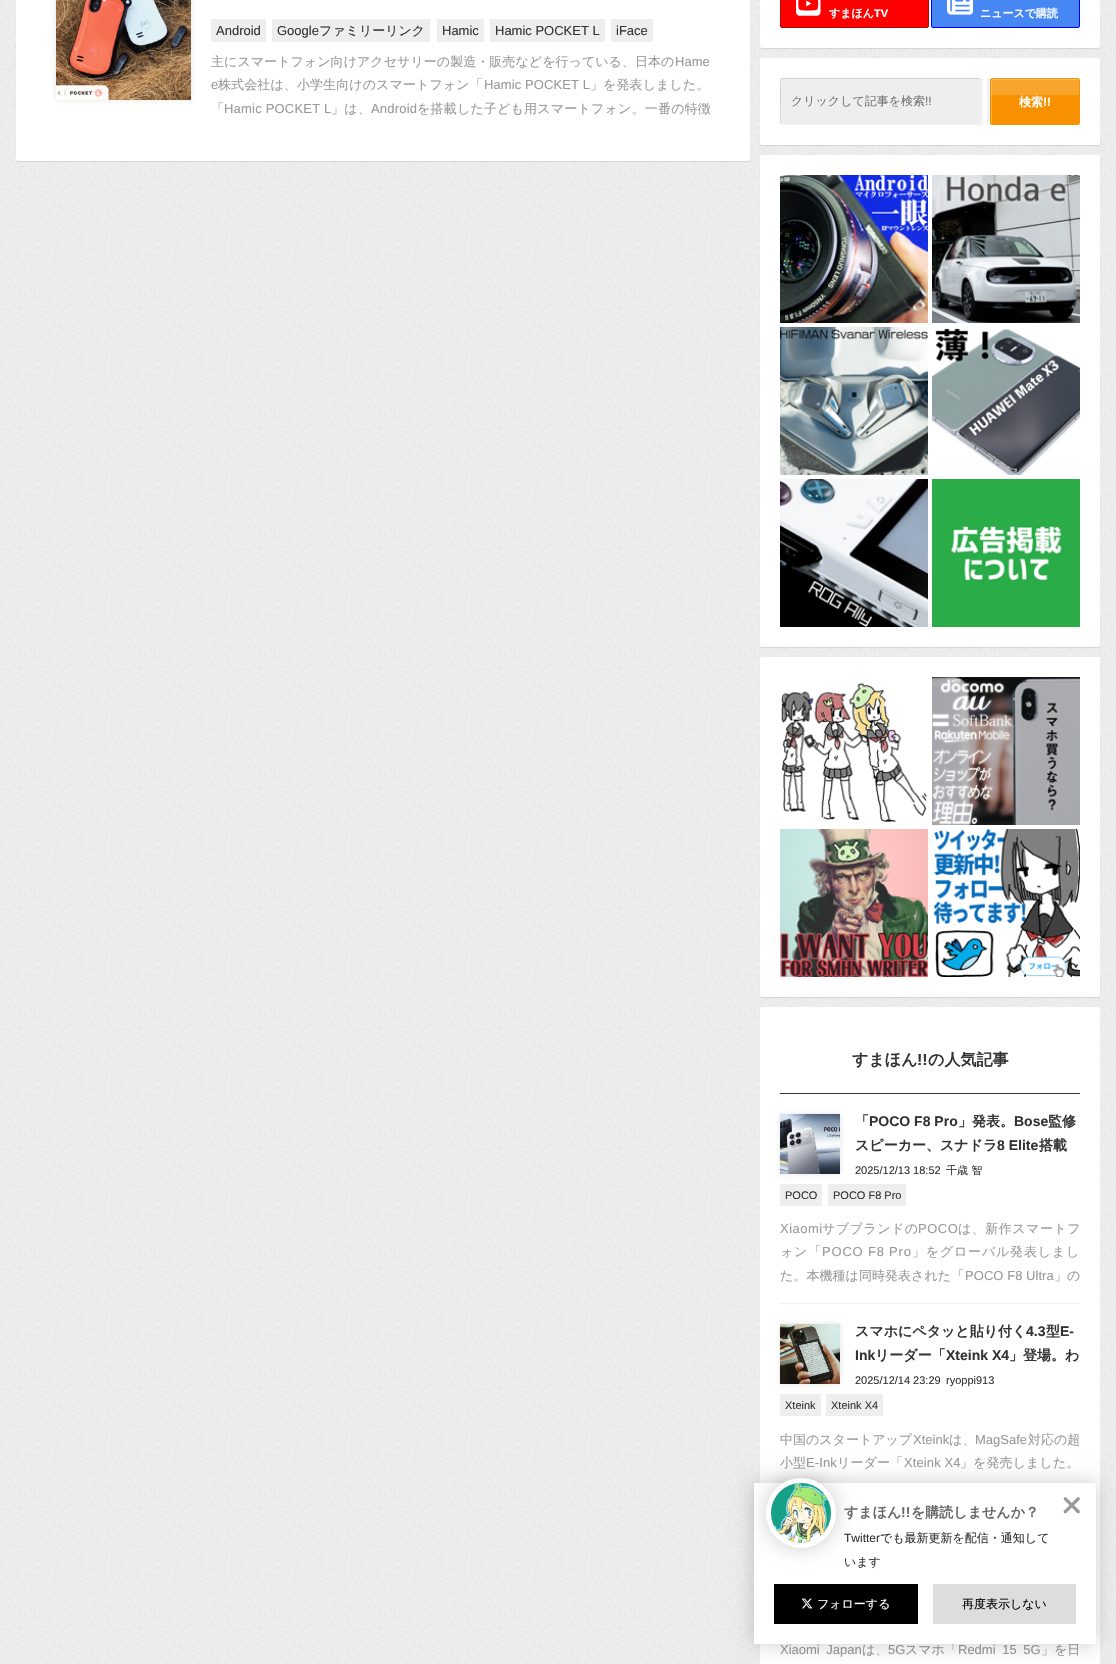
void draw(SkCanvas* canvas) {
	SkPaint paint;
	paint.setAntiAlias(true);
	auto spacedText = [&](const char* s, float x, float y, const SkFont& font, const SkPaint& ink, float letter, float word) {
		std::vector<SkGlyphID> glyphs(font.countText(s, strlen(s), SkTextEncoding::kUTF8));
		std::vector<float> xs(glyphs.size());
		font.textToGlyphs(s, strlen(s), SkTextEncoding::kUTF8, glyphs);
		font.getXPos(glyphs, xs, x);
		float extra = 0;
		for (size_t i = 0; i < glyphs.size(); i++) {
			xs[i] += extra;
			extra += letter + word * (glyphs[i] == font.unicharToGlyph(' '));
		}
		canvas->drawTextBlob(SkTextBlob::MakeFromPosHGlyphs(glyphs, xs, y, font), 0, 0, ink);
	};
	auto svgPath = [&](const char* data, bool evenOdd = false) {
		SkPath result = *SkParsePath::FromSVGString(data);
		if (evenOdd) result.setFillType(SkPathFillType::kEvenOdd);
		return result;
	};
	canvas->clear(0xffffffff);
	canvas->drawImageRect(SkImages::DeferredFromEncodedData(SkData::MakeFromFileName("img1.png")), SkRect::MakeXYWH(0, 0, 1116, 1664), SkSamplingOptions());
	paint.setColor(0x1a000000);
	paint.setMaskFilter(SkMaskFilter::MakeBlur(kNormal_SkBlurStyle, 0.5));
	canvas->drawRoundRect(SkRect::MakeXYWH(16, -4, 734, 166), 2, 2, paint);
	paint.setMaskFilter(nullptr);
	paint.setColor(0xffffffff);
	canvas->drawRoundRect(SkRect::MakeXYWH(16, -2, 734, 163), 2, 2, paint);
	paint.setColor(0x1a000000);
	paint.setMaskFilter(SkMaskFilter::MakeBlur(kNormal_SkBlurStyle, 2.5));
	canvas->drawRect(SkRect::MakeXYWH(56, -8, 135, 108), paint);
	paint.setMaskFilter(nullptr);
	canvas->drawImageRect(SkImages::DeferredFromEncodedData(SkData::MakeFromFileName("img2.png")), SkRect::MakeXYWH(56, 0, 135, 100), SkSamplingOptions());
	paint.setColor(0xffeeeeee);
	canvas->drawRect(SkRect::MakeXYWH(211, 19, 55, 23), paint);
	SkFont f1(fontMgr->matchFamilyStyle("Liberation Sans", SkFontStyle::Normal()), 13);
	f1.setSubpixel(true);
	paint.setColor(0xff333333);
	canvas->drawString("Android", 216, 35, f1, paint);
	paint.setColor(0xffeeeeee);
	canvas->drawRect(SkRect::MakeXYWH(272, 19, 158, 23), paint);
	paint.setColor(0xff333333);
	canvas->drawString("Google", 277, 35, f1, paint);
	SkFont f2(fontMgr->matchFamilyStyle("WenQuanYi Zen Hei", SkFontStyle(500, SkFontStyle::kNormal_Width, SkFontStyle::kUpright_Slant)), 13);
	f2.setSubpixel(true);
	canvas->drawString("ファミリーリンク", 319, 35, f2, paint);
	paint.setColor(0xffeeeeee);
	canvas->drawRect(SkRect::MakeXYWH(437, 19, 47, 23), paint);
	paint.setColor(0xff333333);
	canvas->drawString("Hamic", 442, 35, f1, paint);
	paint.setColor(0xffeeeeee);
	canvas->drawRect(SkRect::MakeXYWH(490, 19, 115, 23), paint);
	paint.setColor(0xff333333);
	canvas->drawString("Hamic POCKET L", 495, 35, f1, paint);
	paint.setColor(0xffeeeeee);
	canvas->drawRect(SkRect::MakeXYWH(611, 19, 42, 23), paint);
	paint.setColor(0xff333333);
	canvas->drawString("iFace", 616, 35, f1, paint);
	paint.setColor(0xff999999);
	spacedText("主にスマートフォン向けアクセサリーの製造・販売などを行っている、日本の", 211, 66, f2, paint, 0.05, 0);
	spacedText("Hame", 675, 66, f1, paint, 0.05, 0);
	spacedText("e", 211, 89, f1, paint, 0.1, 0);
	spacedText("株式会社は、小学生向けのスマートフォン「", 218, 89, f2, paint, 0.1, 0);
	spacedText("Hamic POCKET L", 484, 89, f1, paint, 0.1, 0);
	spacedText("」を発表しました。", 590, 89, f2, paint, 0.1, 0);
	spacedText("「", 211, 113, f2, paint, 0.2, 0);
	spacedText("Hamic POCKET L", 224, 113, f1, paint, 0.2, 0);
	spacedText("」は、", 331, 113, f2, paint, 0.2, 0);
	spacedText("Android", 371, 113, f1, paint, 0.2, 0);
	spacedText("を搭載した子ども用スマートフォン。一番の特徴", 417, 113, f2, paint, 0.2, 0);
	paint.setColor(0x1a000000);
	paint.setMaskFilter(SkMaskFilter::MakeBlur(kNormal_SkBlurStyle, 0.5));
	canvas->drawRoundRect(SkRect::MakeXYWH(760, -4, 340, 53), 2, 2, paint);
	paint.setMaskFilter(nullptr);
	paint.setColor(0xffffffff);
	canvas->drawRoundRect(SkRect::MakeXYWH(760, -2, 340, 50), 2, 2, paint);
	paint.setColor(0xffff0000);
	canvas->drawRoundRect(SkRect::MakeXYWH(780.5, -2.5, 148, 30), 1.5, 1.5, paint);
	paint.setStroke(true);
	paint.setStrokeWidth(1);
	paint.setColor(0xffb70909);
	canvas->drawRoundRect(SkRect::MakeXYWH(780.5, -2.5, 148, 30), 1.5, 1.5, paint);
	canvas->drawImageRect(SkImages::DeferredFromEncodedData(SkData::MakeFromFileName("img3.png")), SkRect::MakeXYWH(796, 0, 25, 16), SkSamplingOptions());
	SkFont f3(fontMgr->matchFamilyStyle("WenQuanYi Zen Hei", SkFontStyle::Bold()), 11);
	f3.setSubpixel(true);
	paint.setStroke(false);
	paint.setColor(0xffffffff);
	canvas->drawString("すまほん", 829, 17, f3, paint);
	SkFont f4(fontMgr->matchFamilyStyle("Liberation Sans", SkFontStyle::Bold()), 11);
	f4.setSubpixel(true);
	canvas->drawString("TV", 874, 17, f4, paint);
	paint.setColor(0xff4687f4);
	canvas->drawRoundRect(SkRect::MakeXYWH(931.5, -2.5, 148, 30), 1.5, 1.5, paint);
	paint.setStroke(true);
	paint.setColor(0xff0000ff);
	canvas->drawRoundRect(SkRect::MakeXYWH(931.5, -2.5, 148, 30), 1.5, 1.5, paint);
	canvas->drawImageRect(SkImages::DeferredFromEncodedData(SkData::MakeFromFileName("img4.png")), SkRect::MakeXYWH(947, 0, 26, 15), SkSamplingOptions());
	paint.setStroke(false);
	paint.setColor(0xffffffff);
	canvas->drawString("ニュースで購読", 980, 17, f3, paint);
	paint.setColor(0x1a000000);
	paint.setMaskFilter(SkMaskFilter::MakeBlur(kNormal_SkBlurStyle, 0.5));
	canvas->drawRoundRect(SkRect::MakeXYWH(760, 59, 340, 87), 2, 2, paint);
	paint.setMaskFilter(nullptr);
	paint.setColor(0xffffffff);
	canvas->drawRoundRect(SkRect::MakeXYWH(760, 58, 340, 87), 2, 2, paint);
	canvas->save();
	canvas->clipRect(SkRect::MakeXYWH(780, 78, 300, 47));
	paint.setStroke(true);
	paint.setStrokeWidth(3);
	paint.setColor(0xfff2f2f2);
	canvas->drawRoundRect(SkRect::MakeXYWH(778.5, 76.5, 203, 49), 4.5, 4.5, paint);
	canvas->restore();
	paint.setStroke(false);
	paint.setColor(0xffeeeeee);
	canvas->drawRoundRect(SkRect::MakeXYWH(780, 78, 200, 46), 3, 3, paint);
	paint.setColor(0xfff3f3f3);
	canvas->drawPath(svgPath("M784 80H979C979 80 978 79 977 79H783C782 79 781 80 781 81V121C781 122 782 123 782 123V89C782 89 780 80 784 80Z"), paint);
	paint.setStroke(true);
	paint.setStrokeWidth(1);
	paint.setColor(0xffeeeeee);
	canvas->drawPath(svgPath("M979 79C980.5 81 979.5 97.5 979.5 101V114.5C979.5 115.5 981 123.5 977 123.5H783L781 123"), paint);
	canvas->save();
	canvas->clipRect(SkRect::MakeXYWH(780, 78, 300, 47));
	paint.setColor(0xffcccccc);
	canvas->drawPath(svgPath("M781 123C779.5 121 780.5 104.5 780.5 101V87.5C780.5 86.5 779 78.5 783 78.5H977L979 79"), paint);
	canvas->restore();
	SkFont f5(fontMgr->matchFamilyStyle("WenQuanYi Zen Hei", SkFontStyle(500, SkFontStyle::kNormal_Width, SkFontStyle::kUpright_Slant)), 12);
	f5.setSubpixel(true);
	paint.setStroke(false);
	paint.setColor(0xff757575);
	canvas->drawString("クリックして記事を検索", 791, 105, f5, paint);
	SkFont f6(fontMgr->matchFamilyStyle("Liberation Sans", SkFontStyle::Normal()), 12);
	f6.setSubpixel(true);
	canvas->drawString("!!", 925, 105, f6, paint);
	canvas->save();
	canvas->clipRect(SkRect::MakeXYWH(780, 78, 300, 47));
	paint.setStroke(true);
	paint.setStrokeWidth(3);
	paint.setColor(0xfff2f2f2);
	canvas->drawRoundRect(SkRect::MakeXYWH(988.5, 76.5, 93, 50), 4.5, 4.5, paint);
	canvas->restore();
	paint.setStroke(false);
	paint.setColor(0xfff79100);
	canvas->drawRoundRect(SkRect::MakeXYWH(990, 78, 90, 47), 3, 3, paint);
	paint.setColor(0x2effffff);
	canvas->drawRect(SkRect::MakeXYWH(990, 78, 90, 17), paint);
	paint.setColor(0x4dffffff);
	canvas->drawPath(svgPath("M994 80H1079C1079 80 1078 79 1077 79H993C992 79 991 80 991 81V122C991 123 992 124 992 124V89C992 85 991 80 994 80Z"), paint);
	paint.setStroke(true);
	paint.setStrokeWidth(1);
	paint.setColor(0xfff79100);
	canvas->drawRoundRect(SkRect::MakeXYWH(990.5, 78.5, 89, 46), 2.5, 2.5, paint);
	SkFont f7(fontMgr->matchFamilyStyle("WenQuanYi Zen Hei", SkFontStyle::Bold()), 12);
	f7.setSubpixel(true);
	paint.setStroke(false);
	paint.setColor(0xffffffff);
	canvas->drawString("検索", 1019, 106, f7, paint);
	SkFont f8(fontMgr->matchFamilyStyle("Liberation Sans", SkFontStyle::Bold()), 12);
	f8.setSubpixel(true);
	canvas->drawString("!!", 1043, 106, f8, paint);
	paint.setColor(0x1a000000);
	paint.setMaskFilter(SkMaskFilter::MakeBlur(kNormal_SkBlurStyle, 0.5));
	canvas->drawRoundRect(SkRect::MakeXYWH(760, 156, 340, 492), 2, 2, paint);
	paint.setMaskFilter(nullptr);
	paint.setColor(0xffffffff);
	canvas->drawRoundRect(SkRect::MakeXYWH(760, 155, 340, 492), 2, 2, paint);
	canvas->drawImageRect(SkImages::DeferredFromEncodedData(SkData::MakeFromFileName("img5.png")), SkRect::MakeXYWH(780, 175, 148, 148), SkSamplingOptions());
	canvas->drawImageRect(SkImages::DeferredFromEncodedData(SkData::MakeFromFileName("img6.png")), SkRect::MakeXYWH(932, 175, 148, 148), SkSamplingOptions());
	canvas->drawImageRect(SkImages::DeferredFromEncodedData(SkData::MakeFromFileName("img7.png")), SkRect::MakeXYWH(780, 327, 148, 148), SkSamplingOptions());
	canvas->drawImageRect(SkImages::DeferredFromEncodedData(SkData::MakeFromFileName("img8.png")), SkRect::MakeXYWH(932, 328, 148, 147), SkSamplingOptions());
	canvas->drawImageRect(SkImages::DeferredFromEncodedData(SkData::MakeFromFileName("img9.png")), SkRect::MakeXYWH(780, 479, 148, 148), SkSamplingOptions());
	canvas->drawImageRect(SkImages::DeferredFromEncodedData(SkData::MakeFromFileName("img10.png")), SkRect::MakeXYWH(932, 479, 148, 148), SkSamplingOptions());
	paint.setColor(0x1a000000);
	paint.setMaskFilter(SkMaskFilter::MakeBlur(kNormal_SkBlurStyle, 0.5));
	canvas->drawRoundRect(SkRect::MakeXYWH(760, 658, 340, 340), 2, 2, paint);
	paint.setMaskFilter(nullptr);
	paint.setColor(0xffffffff);
	canvas->drawRoundRect(SkRect::MakeXYWH(760, 657, 340, 340), 2, 2, paint);
	canvas->drawImageRect(SkImages::DeferredFromEncodedData(SkData::MakeFromFileName("img11.png")), SkRect::MakeXYWH(781, 683, 146, 139), SkSamplingOptions());
	canvas->drawImageRect(SkImages::DeferredFromEncodedData(SkData::MakeFromFileName("img12.png")), SkRect::MakeXYWH(932, 677, 148, 148), SkSamplingOptions());
	canvas->drawImageRect(SkImages::DeferredFromEncodedData(SkData::MakeFromFileName("img13.png")), SkRect::MakeXYWH(780, 829, 148, 148), SkSamplingOptions());
	canvas->drawImageRect(SkImages::DeferredFromEncodedData(SkData::MakeFromFileName("img14.png")), SkRect::MakeXYWH(933, 829, 147, 148), SkSamplingOptions());
	canvas->drawRoundRect(SkRect::MakeXYWH(760, 1007, 340, 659), 2, 2, paint);
	paint.setColor(0xff333333);
	canvas->drawRect(SkRect::MakeXYWH(780, 1093, 300, 1), paint);
	SkFont f9(fontMgr->matchFamilyStyle("WenQuanYi Zen Hei", SkFontStyle::Bold()), 16);
	f9.setSubpixel(true);
	canvas->drawString("すまほん", 852, 1065, f9, paint);
	SkFont f10(fontMgr->matchFamilyStyle("Liberation Sans", SkFontStyle::Bold()), 16);
	f10.setSubpixel(true);
	canvas->drawString("!!", 917, 1065, f10, paint);
	canvas->drawString("の人気記事", 928, 1065, f9, paint);
	paint.setColor(0xfff2f2f2);
	canvas->drawRect(SkRect::MakeXYWH(780, 1303, 300, 1), paint);
	paint.setColor(0x1a000000);
	paint.setMaskFilter(SkMaskFilter::MakeBlur(kNormal_SkBlurStyle, 2.5));
	canvas->drawRect(SkRect::MakeXYWH(780, 1114, 60, 60), paint);
	paint.setMaskFilter(nullptr);
	canvas->drawImageRect(SkImages::DeferredFromEncodedData(SkData::MakeFromFileName("img15.png")), SkRect::MakeXYWH(780, 1114, 60, 60), SkSamplingOptions());
	SkFont f11(fontMgr->matchFamilyStyle("WenQuanYi Zen Hei", SkFontStyle::Bold()), 14);
	f11.setSubpixel(true);
	paint.setColor(0xff333333);
	canvas->drawString("「", 855, 1126, f11, paint);
	SkFont f12(fontMgr->matchFamilyStyle("Liberation Sans", SkFontStyle::Bold()), 14);
	f12.setSubpixel(true);
	canvas->drawString("POCO F8 Pro", 869, 1126, f12, paint);
	canvas->drawString("」発表。", 958, 1126, f11, paint);
	canvas->drawString("Bose", 1014, 1126, f12, paint);
	canvas->drawString("監修", 1048, 1126, f11, paint);
	canvas->drawString("スピーカー、スナドラ", 855, 1150, f11, paint);
	canvas->drawString("8 Elite", 997, 1150, f12, paint);
	canvas->drawString("搭載", 1039, 1150, f11, paint);
	SkFont f13(fontMgr->matchFamilyStyle("Liberation Sans", SkFontStyle::Normal()), 11);
	f13.setSubpixel(true);
	canvas->drawString("2025/12/13 18:52", 855, 1174, f13, paint);
	SkFont f14(fontMgr->matchFamilyStyle("WenQuanYi Zen Hei", SkFontStyle(500, SkFontStyle::kNormal_Width, SkFontStyle::kUpright_Slant)), 11);
	f14.setSubpixel(true);
	canvas->drawString("千歳 智", 946, 1174, f14, paint);
	paint.setColor(0xffeeeeee);
	canvas->drawRect(SkRect::MakeXYWH(780, 1184, 42, 22), paint);
	paint.setColor(0xff333333);
	canvas->drawString("POCO", 785, 1199, f13, paint);
	paint.setColor(0xffeeeeee);
	canvas->drawRect(SkRect::MakeXYWH(828, 1184, 78, 22), paint);
	paint.setColor(0xff333333);
	canvas->drawString("POCO F8 Pro", 833, 1199, f13, paint);
	paint.setColor(0xff999999);
	spacedText("Xiaomi", 780, 1233, f1, paint, 0.5, 0);
	spacedText("サブブランドの", 822, 1233, f2, paint, 0.5, 0);
	spacedText("POCO", 918, 1233, f1, paint, 0.5, 0);
	spacedText("は、新作スマートフ", 958, 1233, f2, paint, 0.5, 0);
	spacedText("ォン「", 780, 1256, f2, paint, 0.8, 0);
	spacedText("POCO F8 Pro", 822, 1256, f1, paint, 0.8, 0);
	spacedText("」をグローバル発表しまし", 912, 1256, f2, paint, 0.8, 0);
	spacedText("た。本機種は同時発表された「", 780, 1280, f2, paint, 0.05, 0);
	spacedText("POCO F8 Ultra", 965, 1280, f1, paint, 0.05, 0);
	spacedText("」の", 1054, 1280, f2, paint, 0.05, 0);
	paint.setColor(0x1a000000);
	paint.setMaskFilter(SkMaskFilter::MakeBlur(kNormal_SkBlurStyle, 2.5));
	canvas->drawRect(SkRect::MakeXYWH(780, 1324, 60, 60), paint);
	paint.setMaskFilter(nullptr);
	canvas->drawImageRect(SkImages::DeferredFromEncodedData(SkData::MakeFromFileName("img16.png")), SkRect::MakeXYWH(780, 1324, 60, 60), SkSamplingOptions());
	paint.setColor(0xff333333);
	canvas->drawString("スマホにペタッと貼り付く", 855, 1336, f11, paint);
	canvas->drawString("4.3", 1026, 1336, f12, paint);
	canvas->drawString("型", 1046, 1336, f11, paint);
	canvas->drawString("E-", 1060, 1336, f12, paint);
	canvas->drawString("Ink", 855, 1360, f12, paint);
	canvas->drawString("リーダー「", 875, 1360, f11, paint);
	canvas->drawString("Xteink X4", 946, 1360, f12, paint);
	canvas->drawString("」登場。わ", 1009, 1360, f11, paint);
	canvas->drawString("2025/12/14 23:29", 855, 1384, f13, paint);
	canvas->drawString("ryoppi913", 946, 1384, f13, paint);
	paint.setColor(0xffeeeeee);
	canvas->drawRect(SkRect::MakeXYWH(780, 1394, 41, 22), paint);
	paint.setColor(0xff333333);
	canvas->drawString("Xteink", 785, 1409, f13, paint);
	paint.setColor(0xffeeeeee);
	canvas->drawRect(SkRect::MakeXYWH(826, 1394, 57, 22), paint);
	paint.setColor(0xff333333);
	canvas->drawString("Xteink X4", 831, 1409, f13, paint);
	paint.setColor(0xff999999);
	canvas->drawString("中国のスタートアップ", 780, 1444, f2, paint);
	canvas->drawString("Xteink", 913, 1444, f1, paint);
	canvas->drawString("は、", 949, 1444, f2, paint);
	canvas->drawString("MagSafe", 975, 1444, f1, paint);
	canvas->drawString("対応の超", 1028, 1444, f2, paint);
	spacedText("小型", 780, 1467, f2, paint, 0.1, 0);
	spacedText("E-Ink", 806, 1467, f1, paint, 0.1, 0);
	spacedText("リーダー「", 837, 1467, f2, paint, 0.1, 0);
	spacedText("Xteink X4", 904, 1467, f1, paint, 0.1, 0);
	spacedText("」を発売しました。", 960, 1467, f2, paint, 0.1, 0);
	spacedText("Xiaomi Japan", 780, 1654, f1, paint, 0, 3);
	canvas->drawString("は、", 862, 1654, f2, paint);
	canvas->drawString("5G", 888, 1654, f1, paint);
	canvas->drawString("スマホ「", 905, 1654, f2, paint);
	spacedText("Redmi 15 5G", 958, 1654, f1, paint, 0, 3);
	canvas->drawString("」を日", 1041, 1654, f2, paint);
	paint.setColor(0x33000000);
	paint.setMaskFilter(SkMaskFilter::MakeBlur(kNormal_SkBlurStyle, 10));
	canvas->drawRect(SkRect::MakeXYWH(754, 1483, 342, 161), paint);
	paint.setMaskFilter(nullptr);
	paint.setColor(0xffffffff);
	canvas->drawRect(SkRect::MakeXYWH(754, 1483, 342, 161), paint);
	paint.setColor(0x33000000);
	paint.setMaskFilter(SkMaskFilter::MakeBlur(kNormal_SkBlurStyle, 10));
	canvas->drawRoundRect(SkRect::MakeXYWH(766, 1478, 70, 70), 35, 35, paint);
	paint.setMaskFilter(nullptr);
	paint.setStroke(true);
	paint.setStrokeWidth(5);
	paint.setColor(0xffffffff);
	canvas->drawCircle(801, 1513, 32.5, paint);
	canvas->drawImageRect(SkImages::DeferredFromEncodedData(SkData::MakeFromFileName("img17.png")), SkRect::MakeXYWH(771, 1483, 60, 60), SkSamplingOptions());
	paint.setStroke(false);
	paint.setColor(0xff666666);
	canvas->drawString("すまほん", 844, 1517, f11, paint);
	canvas->drawString("!!", 901, 1517, f12, paint);
	canvas->drawString("を購読しませんか？", 911, 1517, f11, paint);
	canvas->drawImageRect(SkImages::DeferredFromEncodedData(SkData::MakeFromFileName("img18.png")), SkRect::MakeXYWH(1063, 1497, 17, 17), SkSamplingOptions());
	paint.setColor(0xff333333);
	canvas->drawString("Twitter", 844, 1542, f6, paint);
	canvas->drawString("でも最新更新を配信・通知して", 880, 1542, f5, paint);
	canvas->drawString("います", 844, 1566, f5, paint);
	paint.setColor(0xff000000);
	canvas->drawRect(SkRect::MakeXYWH(774, 1584, 144, 40), paint);
	canvas->drawImageRect(SkImages::DeferredFromEncodedData(SkData::MakeFromFileName("img19.png")), SkRect::MakeXYWH(801, 1598, 12, 11), SkSamplingOptions());
	paint.setColor(0xffffffff);
	canvas->drawString("フォローする", 817, 1608, f5, paint);
	paint.setColor(0xffdddddd);
	canvas->drawRect(SkRect::MakeXYWH(933, 1584, 143, 40), paint);
	paint.setColor(0xff000000);
	canvas->drawString("再度表示しない", 962, 1608, f5, paint);
}
